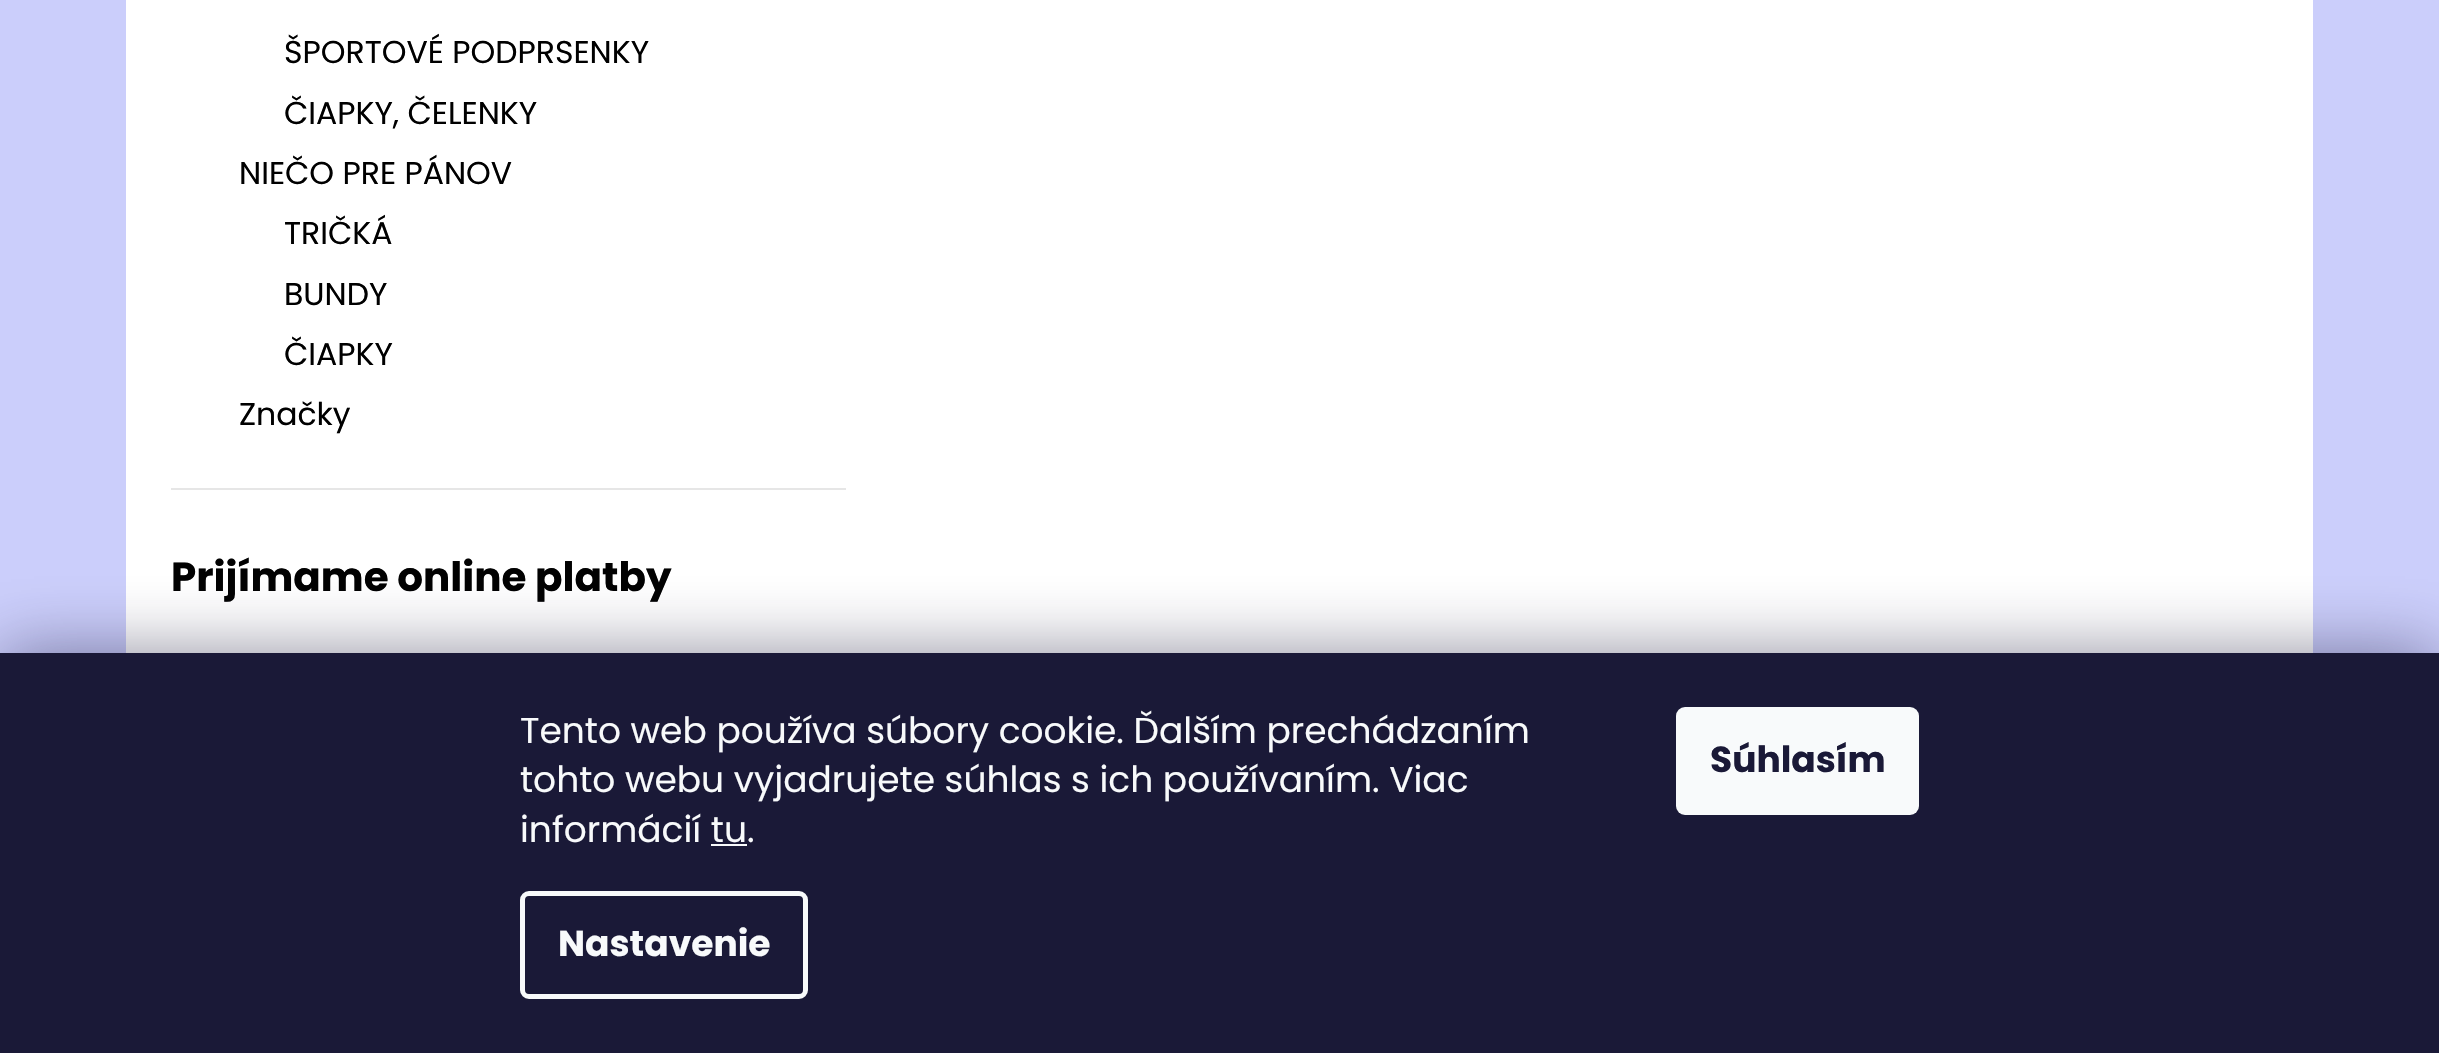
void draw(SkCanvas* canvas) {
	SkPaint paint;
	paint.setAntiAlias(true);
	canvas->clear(0xffcbcefb);
	paint.setColor(0xffffffff);
	canvas->drawRect(SkRect::MakeXYWH(126, 0, 2187, 653), paint);
	SkFont f1(fontMgr->matchFamilyStyle("Poppins", SkFontStyle::Normal()), 31.5);
	f1.setSubpixel(true);
	paint.setColor(0xff000000);
	canvas->drawString("ŠPORTOVÉ PODPRSENKY", 284, 63, f1, paint);
	canvas->drawString("ČIAPKY, ČELENKY", 284, 124, f1, paint);
	canvas->drawString("NIEČO PRE PÁNOV", 239, 184, f1, paint);
	canvas->drawString("TRIČKÁ", 284, 244, f1, paint);
	canvas->drawString("BUNDY", 284, 305, f1, paint);
	canvas->drawString("ČIAPKY", 284, 365, f1, paint);
	canvas->drawString("Značky", 239, 425, f1, paint);
	paint.setColor(0xffe6e6e6);
	canvas->drawRect(SkRect::MakeXYWH(171, 488, 675, 2), paint);
	SkFont f2(fontMgr->matchFamilyStyle("Poppins", SkFontStyle::Bold()), 40.5);
	f2.setSubpixel(true);
	paint.setColor(0xff000000);
	canvas->drawString("Prijímame online platby", 171, 591, f2, paint);
	paint.setColor(0x801b1939);
	paint.setMaskFilter(SkMaskFilter::MakeBlur(kNormal_SkBlurStyle, 34));
	canvas->drawRect(SkRect::MakeXYWH(0, 653, 2439, 400), paint);
	paint.setMaskFilter(nullptr);
	paint.setColor(0xff1a1937);
	canvas->drawRect(SkRect::MakeXYWH(0, 653, 2439, 400), paint);
	SkFont f3(fontMgr->matchFamilyStyle("Poppins", SkFontStyle::Normal()), 36);
	f3.setSubpixel(true);
	paint.setColor(0xfff8fafb);
	canvas->drawString("Tento web používa súbory cookie. Ďalším prechádzaním", 520, 743, f3, paint);
	canvas->drawString("tohto webu vyjadrujete súhlas s ich používaním. Viac", 520, 792, f3, paint);
	canvas->drawString("informácií tu.", 520, 842, f3, paint);
	canvas->drawRect(SkRect::MakeXYWH(711, 844, 36, 2), paint);
	paint.setStroke(true);
	paint.setStrokeWidth(5);
	canvas->drawRoundRect(SkRect::MakeXYWH(522.5, 893.5, 283, 103), 6.5, 6.5, paint);
	SkFont f4(fontMgr->matchFamilyStyle("Poppins", SkFontStyle::Bold()), 36);
	f4.setSubpixel(true);
	paint.setStroke(false);
	canvas->drawString("Nastavenie", 558, 956, f4, paint);
	canvas->drawRoundRect(SkRect::MakeXYWH(1676, 707, 243, 108), 9, 9, paint);
	paint.setColor(0xff1a1937);
	canvas->drawString("Súhlasím", 1710, 772, f4, paint);
}
